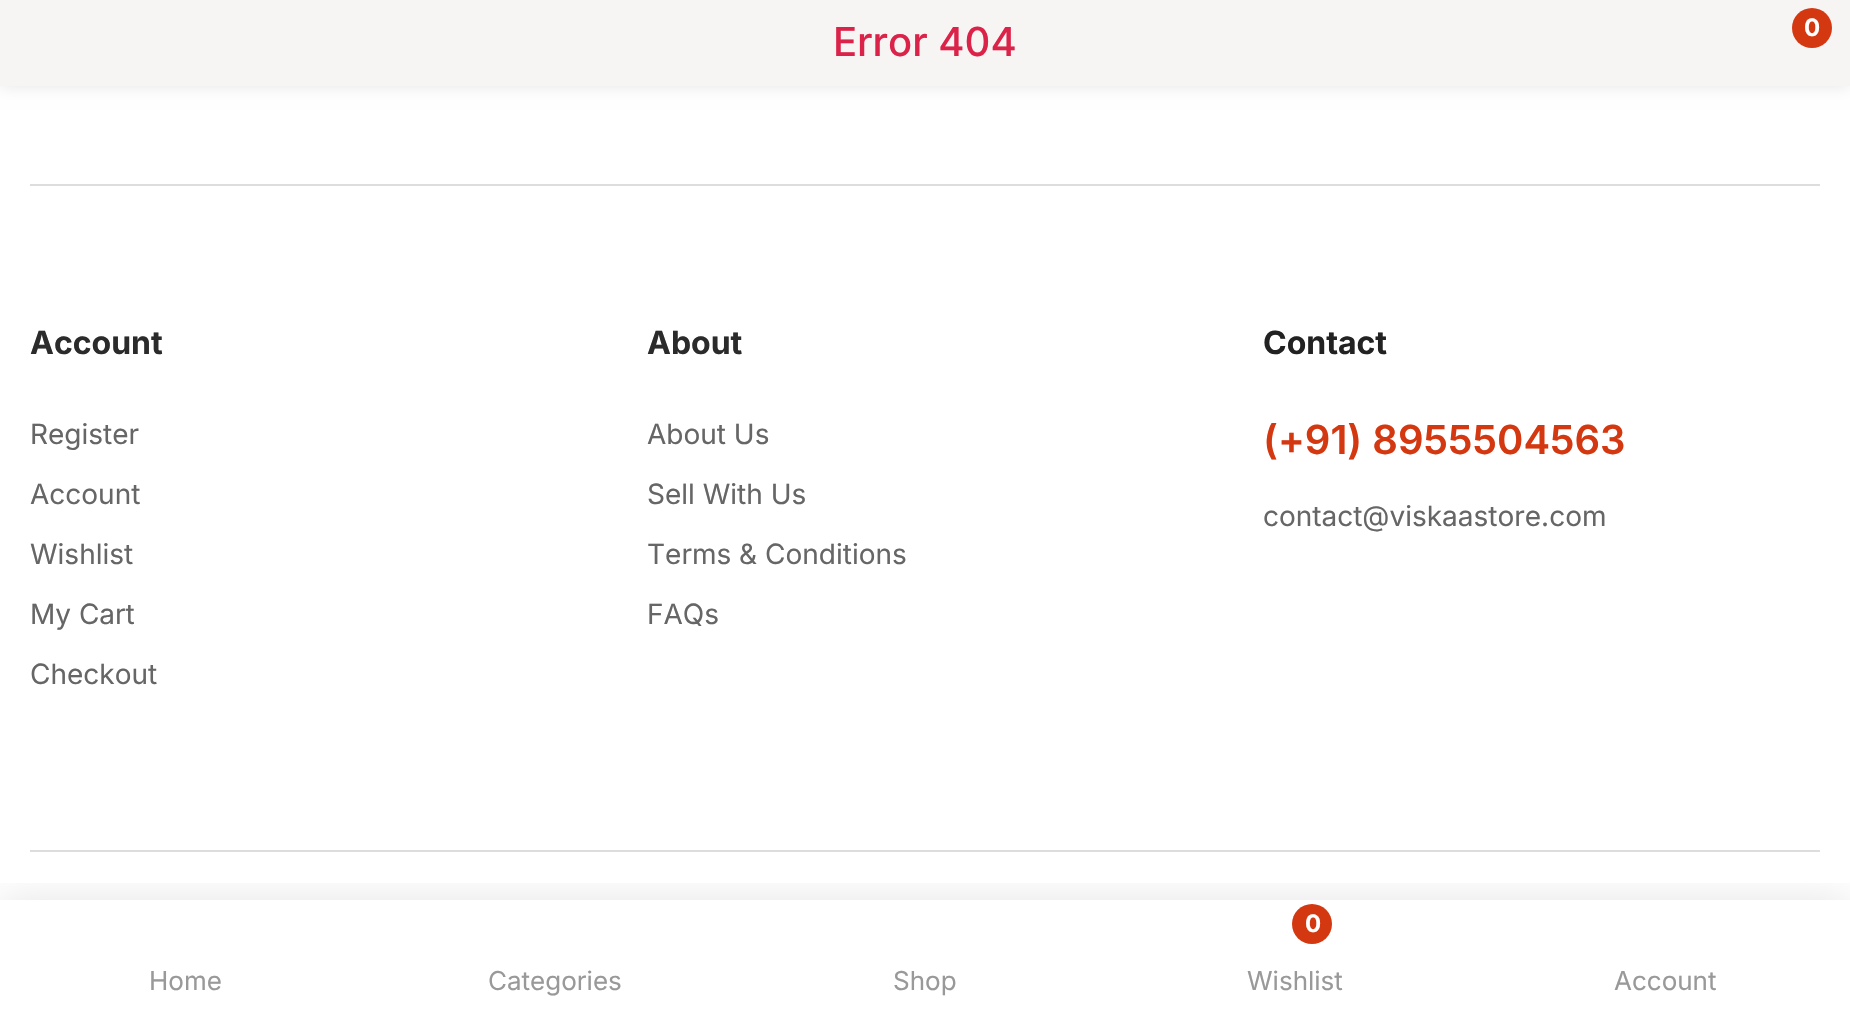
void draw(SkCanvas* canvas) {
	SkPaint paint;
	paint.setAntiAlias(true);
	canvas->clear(0xffffffff);
	paint.setColor(0x1a000000);
	paint.setMaskFilter(SkMaskFilter::MakeBlur(kNormal_SkBlurStyle, 8));
	canvas->drawRect(SkRect::MakeXYWH(0, 0, 1850, 86), paint);
	paint.setMaskFilter(nullptr);
	paint.setColor(0xfff7f4f4);
	canvas->drawRect(SkRect::MakeXYWH(0, 0, 1850, 86), paint);
	SkFont f1(fontMgr->matchFamilyStyle("Inter", SkFontStyle(500, SkFontStyle::kNormal_Width, SkFontStyle::kUpright_Slant)), 40);
	f1.setSubpixel(true);
	paint.setColor(0xffdb234a);
	canvas->drawString("Error 404", 833, 56, f1, paint);
	paint.setColor(0xffd43811);
	canvas->drawCircle(1812, 28, 20, paint);
	SkFont f2(fontMgr->matchFamilyStyle("Inter", SkFontStyle::Bold()), 24);
	f2.setSubpixel(true);
	paint.setColor(0xffffffff);
	canvas->drawString("0", 1804, 36, f2, paint);
	paint.setColor(0xffdddddd);
	canvas->drawRect(SkRect::MakeXYWH(30, 184, 1790, 2), paint);
	SkFont f3(fontMgr->matchFamilyStyle("Inter", SkFontStyle::Bold()), 32);
	f3.setSubpixel(true);
	paint.setColor(0xff2b2b2b);
	canvas->drawString("Account", 30, 354, f3, paint);
	SkFont f4(fontMgr->matchFamilyStyle("Inter", SkFontStyle::Normal()), 28);
	f4.setSubpixel(true);
	paint.setColor(0xff666666);
	canvas->drawString("Register", 30, 444, f4, paint);
	canvas->drawString("Account", 30, 504, f4, paint);
	canvas->drawString("Wishlist", 30, 564, f4, paint);
	canvas->drawString("My Cart", 30, 624, f4, paint);
	canvas->drawString("Checkout", 30, 684, f4, paint);
	paint.setColor(0xff2b2b2b);
	canvas->drawString("About", 647, 354, f3, paint);
	paint.setColor(0xff666666);
	canvas->drawString("About Us", 647, 444, f4, paint);
	canvas->drawString("Sell With Us", 647, 504, f4, paint);
	canvas->drawString("Terms & Conditions", 647, 564, f4, paint);
	canvas->drawString("FAQs", 647, 624, f4, paint);
	paint.setColor(0xff222222);
	canvas->drawString("Contact", 1263, 354, f3, paint);
	SkFont f5(fontMgr->matchFamilyStyle("Inter", SkFontStyle(600, SkFontStyle::kNormal_Width, SkFontStyle::kUpright_Slant)), 40);
	f5.setSubpixel(true);
	paint.setColor(0xffd43811);
	canvas->drawString("(+91) 8955504563", 1263, 454, f5, paint);
	paint.setColor(0xff666666);
	canvas->drawString("contact@viskaastore.com", 1263, 526, f4, paint);
	paint.setColor(0xffdddddd);
	canvas->drawRect(SkRect::MakeXYWH(30, 850, 1790, 2), paint);
	canvas->save();
	canvas->clipRect(SkRect::MakeXYWH(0, 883, 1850, 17));
	paint.setColor(0x1a000000);
	paint.setMaskFilter(SkMaskFilter::MakeBlur(kNormal_SkBlurStyle, 20));
	canvas->drawRect(SkRect::MakeXYWH(0, 900, 1850, 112), paint);
	paint.setMaskFilter(nullptr);
	canvas->restore();
	SkFont f6(fontMgr->matchFamilyStyle("Inter", SkFontStyle::Normal()), 26);
	f6.setSubpixel(true);
	paint.setColor(0xff999999);
	canvas->drawString("Home", 149, 990, f6, paint);
	canvas->drawString("Categories", 488, 990, f6, paint);
	canvas->drawString("Shop", 893, 990, f6, paint);
	paint.setColor(0xffd43811);
	canvas->drawCircle(1312, 924, 20, paint);
	paint.setColor(0xffffffff);
	canvas->drawString("0", 1305, 932, f2, paint);
	paint.setColor(0xff999999);
	canvas->drawString("Wishlist", 1247, 990, f6, paint);
	canvas->drawString("Account", 1614, 990, f6, paint);
}
